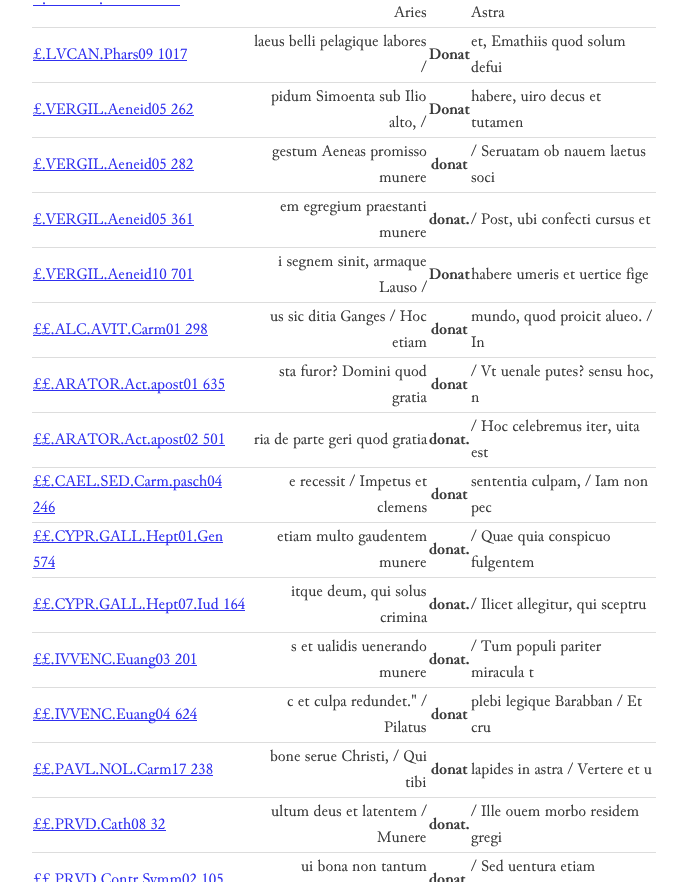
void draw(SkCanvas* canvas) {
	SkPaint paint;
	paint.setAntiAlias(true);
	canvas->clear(0xffffffff);
	SkFont f1(fontMgr->matchFamilyStyle("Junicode", SkFontStyle::Normal()), 16);
	f1.setSubpixel(true);
	paint.setColor(0xff3030f0);
	canvas->drawString(".", 42, 4, f1, paint);
	canvas->drawRect(SkRect::MakeXYWH(33, 5, 147, 1), paint);
	canvas->drawString(".", 99, 4, f1, paint);
	paint.setColor(0xff3b3b3b);
	canvas->drawString("Aries", 394, 17, f1, paint);
	paint.setColor(0xffdddddd);
	canvas->drawRect(SkRect::MakeXYWH(32, 27, 624, 1), paint);
	paint.setColor(0xff3b3b3b);
	canvas->drawString("Astra", 471, 17, f1, paint);
	paint.setColor(0xff3030f0);
	canvas->drawString("£.LVCAN.Phars09 1017", 33, 59, f1, paint);
	canvas->drawRect(SkRect::MakeXYWH(33, 60, 154, 1), paint);
	paint.setColor(0xff3b3b3b);
	canvas->drawString("laeus belli pelagique labores", 254, 46, f1, paint);
	canvas->drawString("/", 421, 72, f1, paint);
	SkFont f2(fontMgr->matchFamilyStyle("Junicode", SkFontStyle::Bold()), 16);
	f2.setSubpixel(true);
	canvas->drawString("Donat", 429, 59, f2, paint);
	paint.setColor(0xffdddddd);
	canvas->drawRect(SkRect::MakeXYWH(32, 82, 624, 1), paint);
	paint.setColor(0xff3b3b3b);
	canvas->drawString("et, Emathiis quod solum", 471, 46, f1, paint);
	canvas->drawString("defui", 471, 72, f1, paint);
	paint.setColor(0xff3030f0);
	canvas->drawString("£.VERGIL.Aeneid05 262", 33, 114, f1, paint);
	canvas->drawRect(SkRect::MakeXYWH(33, 115, 161, 1), paint);
	paint.setColor(0xff3b3b3b);
	canvas->drawString("pidum Simoenta sub Ilio", 271, 101, f1, paint);
	canvas->drawString("alto, /", 389, 127, f1, paint);
	canvas->drawString("Donat", 429, 114, f2, paint);
	paint.setColor(0xffdddddd);
	canvas->drawRect(SkRect::MakeXYWH(32, 137, 624, 1), paint);
	paint.setColor(0xff3b3b3b);
	canvas->drawString("habere, uiro decus et", 471, 101, f1, paint);
	canvas->drawString("tutamen", 471, 127, f1, paint);
	paint.setColor(0xff3030f0);
	canvas->drawString("£.VERGIL.Aeneid05 282", 33, 169, f1, paint);
	canvas->drawRect(SkRect::MakeXYWH(33, 170, 161, 1), paint);
	paint.setColor(0xff3b3b3b);
	canvas->drawString("gestum Aeneas promisso", 272, 156, f1, paint);
	canvas->drawString("munere", 379, 182, f1, paint);
	canvas->drawString("donat", 431, 169, f2, paint);
	paint.setColor(0xffdddddd);
	canvas->drawRect(SkRect::MakeXYWH(32, 192, 624, 1), paint);
	paint.setColor(0xff3b3b3b);
	canvas->drawString("/ Seruatam ob nauem laetus", 471, 156, f1, paint);
	canvas->drawString("soci", 471, 182, f1, paint);
	paint.setColor(0xff3030f0);
	canvas->drawString("£.VERGIL.Aeneid05 361", 33, 224, f1, paint);
	canvas->drawRect(SkRect::MakeXYWH(33, 225, 161, 1), paint);
	paint.setColor(0xff3b3b3b);
	canvas->drawString("em egregium praestanti", 280, 211, f1, paint);
	canvas->drawString("munere", 379, 237, f1, paint);
	canvas->drawString("donat.", 429, 224, f2, paint);
	paint.setColor(0xffdddddd);
	canvas->drawRect(SkRect::MakeXYWH(32, 247, 624, 1), paint);
	paint.setColor(0xff3b3b3b);
	canvas->drawString("/ Post, ubi confecti cursus et", 471, 224, f1, paint);
	paint.setColor(0xff3030f0);
	canvas->drawString("£.VERGIL.Aeneid10 701", 33, 279, f1, paint);
	canvas->drawRect(SkRect::MakeXYWH(33, 280, 161, 1), paint);
	paint.setColor(0xff3b3b3b);
	canvas->drawString("i segnem sinit, armaque", 278, 266, f1, paint);
	canvas->drawString("Lauso /", 379, 292, f1, paint);
	canvas->drawString("Donat", 429, 279, f2, paint);
	paint.setColor(0xffdddddd);
	canvas->drawRect(SkRect::MakeXYWH(32, 302, 624, 1), paint);
	paint.setColor(0xff3b3b3b);
	canvas->drawString("habere umeris et uertice fige", 471, 279, f1, paint);
	paint.setColor(0xff3030f0);
	canvas->drawString("££.ALC.AVIT.Carm01 298", 33, 334, f1, paint);
	canvas->drawRect(SkRect::MakeXYWH(33, 335, 175, 1), paint);
	paint.setColor(0xff3b3b3b);
	canvas->drawString("us sic ditia Ganges / Hoc", 270, 321, f1, paint);
	canvas->drawString("etiam", 392, 347, f1, paint);
	canvas->drawString("donat", 431, 334, f2, paint);
	paint.setColor(0xffdddddd);
	canvas->drawRect(SkRect::MakeXYWH(32, 357, 624, 1), paint);
	paint.setColor(0xff3b3b3b);
	canvas->drawString("mundo, quod proicit alueo. /", 471, 321, f1, paint);
	canvas->drawString("In", 471, 347, f1, paint);
	paint.setColor(0xff3030f0);
	canvas->drawRect(SkRect::MakeXYWH(33, 390, 192, 1), paint);
	canvas->drawString("££.ARATOR.Act.apost01 635", 33, 389, f1, paint);
	paint.setColor(0xff3b3b3b);
	canvas->drawString("sta furor? Domini quod", 279, 376, f1, paint);
	canvas->drawString("gratia", 392, 402, f1, paint);
	canvas->drawString("donat", 431, 389, f2, paint);
	paint.setColor(0xffdddddd);
	canvas->drawRect(SkRect::MakeXYWH(32, 412, 624, 1), paint);
	paint.setColor(0xff3b3b3b);
	canvas->drawString("/ Vt uenale putes? sensu hoc,", 471, 376, f1, paint);
	canvas->drawString("n", 471, 402, f1, paint);
	paint.setColor(0xff3030f0);
	canvas->drawRect(SkRect::MakeXYWH(33, 445, 192, 1), paint);
	canvas->drawString("££.ARATOR.Act.apost02 501", 33, 444, f1, paint);
	paint.setColor(0xff3b3b3b);
	canvas->drawString("ria de parte geri quod gratia", 254, 444, f1, paint);
	canvas->drawString("donat.", 429, 444, f2, paint);
	paint.setColor(0xffdddddd);
	canvas->drawRect(SkRect::MakeXYWH(32, 467, 624, 1), paint);
	paint.setColor(0xff3b3b3b);
	canvas->drawString("/ Hoc celebremus iter, uita", 471, 431, f1, paint);
	canvas->drawString("est", 471, 457, f1, paint);
	paint.setColor(0xff3030f0);
	canvas->drawRect(SkRect::MakeXYWH(33, 487, 189, 1), paint);
	canvas->drawString("££.CAEL.SED.Carm.pasch04", 33, 486, f1, paint);
	canvas->drawString("246", 33, 512, f1, paint);
	canvas->drawRect(SkRect::MakeXYWH(33, 513, 22, 1), paint);
	paint.setColor(0xff3b3b3b);
	canvas->drawString("e recessit / Impetus et", 289, 486, f1, paint);
	canvas->drawString("clemens", 377, 512, f1, paint);
	canvas->drawString("donat", 431, 499, f2, paint);
	paint.setColor(0xffdddddd);
	canvas->drawRect(SkRect::MakeXYWH(32, 522, 624, 1), paint);
	paint.setColor(0xff3b3b3b);
	canvas->drawString("sententia culpam, / Iam non", 471, 486, f1, paint);
	canvas->drawString("pec", 471, 512, f1, paint);
	paint.setColor(0xff3030f0);
	canvas->drawRect(SkRect::MakeXYWH(33, 542, 190, 1), paint);
	canvas->drawString("££.CYPR.GALL.Hept01.Gen", 33, 541, f1, paint);
	canvas->drawString("574", 33, 567, f1, paint);
	canvas->drawRect(SkRect::MakeXYWH(33, 568, 22, 1), paint);
	paint.setColor(0xff3b3b3b);
	canvas->drawString("etiam multo gaudentem", 277, 541, f1, paint);
	canvas->drawString("munere", 379, 567, f1, paint);
	canvas->drawString("donat.", 429, 554, f2, paint);
	paint.setColor(0xffdddddd);
	canvas->drawRect(SkRect::MakeXYWH(32, 577, 624, 1), paint);
	paint.setColor(0xff3b3b3b);
	canvas->drawString("/ Quae quia conspicuo", 471, 541, f1, paint);
	canvas->drawString("fulgentem", 471, 567, f1, paint);
	paint.setColor(0xff3030f0);
	canvas->drawRect(SkRect::MakeXYWH(33, 610, 212, 1), paint);
	canvas->drawString("££.CYPR.GALL.Hept07.Iud 164", 33, 609, f1, paint);
	paint.setColor(0xff3b3b3b);
	canvas->drawString("itque deum, qui solus", 291, 596, f1, paint);
	canvas->drawString("crimina", 380, 622, f1, paint);
	canvas->drawString("donat.", 429, 609, f2, paint);
	paint.setColor(0xffdddddd);
	canvas->drawRect(SkRect::MakeXYWH(32, 632, 624, 1), paint);
	paint.setColor(0xff3b3b3b);
	canvas->drawString("/ Ilicet allegitur, qui sceptru", 471, 609, f1, paint);
	paint.setColor(0xff3030f0);
	canvas->drawRect(SkRect::MakeXYWH(33, 665, 164, 1), paint);
	canvas->drawString("££.IVVENC.Euang03 201", 33, 664, f1, paint);
	paint.setColor(0xff3b3b3b);
	canvas->drawString("s et ualidis uenerando", 291, 651, f1, paint);
	canvas->drawString("munere", 379, 677, f1, paint);
	canvas->drawString("donat.", 429, 664, f2, paint);
	paint.setColor(0xffdddddd);
	canvas->drawRect(SkRect::MakeXYWH(32, 687, 624, 1), paint);
	paint.setColor(0xff3b3b3b);
	canvas->drawString("/ Tum populi pariter", 471, 651, f1, paint);
	canvas->drawString("miracula t", 471, 677, f1, paint);
	paint.setColor(0xff3030f0);
	canvas->drawRect(SkRect::MakeXYWH(33, 720, 164, 1), paint);
	canvas->drawString("££.IVVENC.Euang04 624", 33, 719, f1, paint);
	paint.setColor(0xff3b3b3b);
	canvas->drawString("c et culpa redundet.\" /", 287, 706, f1, paint);
	canvas->drawString("Pilatus", 384, 732, f1, paint);
	canvas->drawString("donat", 431, 719, f2, paint);
	paint.setColor(0xffdddddd);
	canvas->drawRect(SkRect::MakeXYWH(32, 742, 624, 1), paint);
	paint.setColor(0xff3b3b3b);
	canvas->drawString("plebi legique Barabban / Et", 471, 706, f1, paint);
	canvas->drawString("cru", 471, 732, f1, paint);
	paint.setColor(0xff3030f0);
	canvas->drawString("££.PAVL.NOL.Carm17 238", 33, 774, f1, paint);
	canvas->drawRect(SkRect::MakeXYWH(33, 775, 180, 1), paint);
	paint.setColor(0xff3b3b3b);
	canvas->drawString("bone serue Christi, / Qui", 270, 761, f1, paint);
	canvas->drawString("tibi", 405, 787, f1, paint);
	canvas->drawString("donat", 431, 774, f2, paint);
	paint.setColor(0xffdddddd);
	canvas->drawRect(SkRect::MakeXYWH(32, 797, 624, 1), paint);
	paint.setColor(0xff3b3b3b);
	canvas->drawString("lapides in astra / Vertere et u", 471, 774, f1, paint);
	paint.setColor(0xff3030f0);
	canvas->drawString("££.PRVD.Cath08 32", 33, 829, f1, paint);
	canvas->drawRect(SkRect::MakeXYWH(33, 830, 133, 1), paint);
	paint.setColor(0xff3b3b3b);
	canvas->drawString("ultum deus et latentem /", 271, 816, f1, paint);
	canvas->drawString("Munere", 377, 842, f1, paint);
	canvas->drawString("donat.", 429, 829, f2, paint);
	paint.setColor(0xffdddddd);
	canvas->drawRect(SkRect::MakeXYWH(32, 852, 624, 1), paint);
	paint.setColor(0xff3b3b3b);
	canvas->drawString("/ Ille ouem morbo residem", 471, 816, f1, paint);
	canvas->drawString("gregi", 471, 842, f1, paint);
	canvas->drawString("ui bona non tantum", 301, 871, f1, paint);
	canvas->drawString("/ Sed uentura etiam", 471, 871, f1, paint);
	paint.setColor(0xff3030f0);
	canvas->drawString("££.PRVD.Contr.Symm02 105", 33, 884, f1, paint);
	paint.setColor(0xff3b3b3b);
	canvas->drawString("donat", 429, 884, f2, paint);
}
